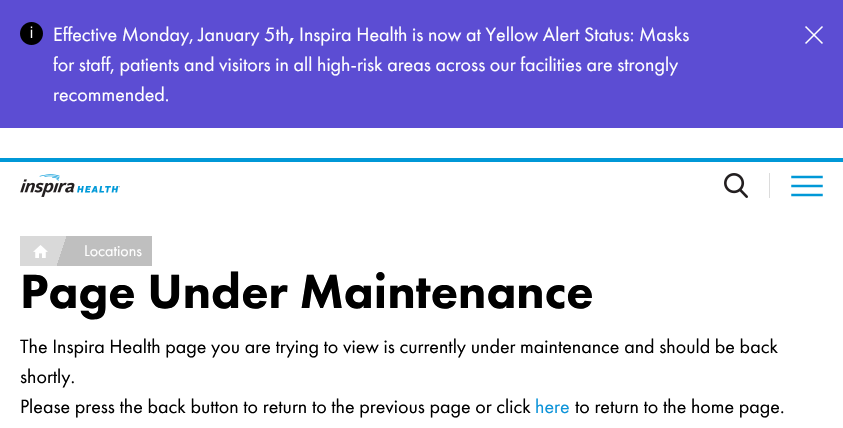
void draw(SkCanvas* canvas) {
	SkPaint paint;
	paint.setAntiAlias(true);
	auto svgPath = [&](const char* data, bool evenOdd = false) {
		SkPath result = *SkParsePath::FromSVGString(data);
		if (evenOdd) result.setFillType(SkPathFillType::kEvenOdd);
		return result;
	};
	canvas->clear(0xffffffff);
	paint.setColor(0xff5c4dd3);
	canvas->drawRect(SkRect::MakeXYWH(0, 0, 843, 128), paint);
	canvas->drawImageRect(SkImages::DeferredFromEncodedData(SkData::MakeFromFileName("img1.png")), SkRect::MakeXYWH(20, 22, 23, 23), SkSamplingOptions());
	SkFont f1(fontMgr->matchFamilyStyle("Futura PT", SkFontStyle::Normal()), 20);
	f1.setSubpixel(true);
	paint.setColor(0xffffffff);
	canvas->drawString("Effective Monday, January 5th", 53, 41, f1, paint);
	SkFont f2(fontMgr->matchFamilyStyle("Futura PT", SkFontStyle(900, SkFontStyle::kNormal_Width, SkFontStyle::kUpright_Slant)), 20);
	f2.setSubpixel(true);
	canvas->drawString(",", 289, 41, f2, paint);
	canvas->drawString("Inspira Health is now at Yellow Alert Status: Masks", 299, 41, f1, paint);
	canvas->drawString("for staff, patients and visitors in all high-risk areas across our facilities are strongly", 53, 71, f1, paint);
	canvas->drawString("recommended.", 53, 101, f1, paint);
	canvas->drawImageRect(SkImages::DeferredFromEncodedData(SkData::MakeFromFileName("img2.png")), SkRect::MakeXYWH(805, 26, 18, 18), SkSamplingOptions());
	paint.setColor(0xff0098d7);
	canvas->drawRect(SkRect::MakeXYWH(0, 158, 843, 4), paint);
	canvas->drawImageRect(SkImages::DeferredFromEncodedData(SkData::MakeFromFileName("img3.png")), SkRect::MakeXYWH(20, 174, 100, 23), SkSamplingOptions());
	canvas->drawImageRect(SkImages::DeferredFromEncodedData(SkData::MakeFromFileName("img4.png")), SkRect::MakeXYWH(724, 173, 24, 25), SkSamplingOptions());
	paint.setColor(0xffdcdcdc);
	canvas->drawRect(SkRect::MakeXYWH(769, 173, 1, 25), paint);
	paint.setStroke(true);
	paint.setStrokeWidth(2.5);
	paint.setStrokeCap(SkPaint::kSquare_Cap);
	paint.setColor(0xff0098d7);
	canvas->drawPath(svgPath("M792.5 177H821.5M792.5 186H821.5M792.5 195H821.5"), paint);
	paint.setStroke(false);
	paint.setColor(0xffd9d9d9);
	canvas->drawRect(SkRect::MakeXYWH(20, 236, 36, 30), paint);
	canvas->drawImageRect(SkImages::DeferredFromEncodedData(SkData::MakeFromFileName("img5.png")), SkRect::MakeXYWH(33, 245, 15, 13), SkSamplingOptions());
	{
		const SkColor colors[] = {0xffd9d9d9, 0xffd9d9d9, 0xffbfbfbf};
		const float stops[] = {0, 0.53, 0.53};
		const SkPoint ends[] = {{52, 248}, {70, 254}};
		paint.setShader(SkGradientShader::MakeLinear(ends, colors, stops, 3, SkTileMode::kClamp));
		paint.setAlpha(255);
	}
	canvas->drawRect(SkRect::MakeXYWH(56, 236, 10, 30), paint);
	paint.setShader(nullptr);
	paint.setColor(0xffbfbfbf);
	canvas->drawRect(SkRect::MakeXYWH(66, 236, 86, 30), paint);
	SkFont f3(fontMgr->matchFamilyStyle("Futura PT", SkFontStyle::Normal()), 16);
	f3.setSubpixel(true);
	paint.setColor(0xffffffff);
	canvas->drawString("Locations", 84, 256, f3, paint);
	SkFont f4(fontMgr->matchFamilyStyle("Futura PT", SkFontStyle(900, SkFontStyle::kNormal_Width, SkFontStyle::kUpright_Slant)), 50);
	f4.setSubpixel(true);
	paint.setColor(0xff000000);
	canvas->drawString("Page Under Maintenance", 20, 308, f4, paint);
	canvas->drawString("The Inspira Health page you are trying to view is currently under maintenance and should be back", 20, 353, f1, paint);
	canvas->drawString("shortly.", 20, 383, f1, paint);
	canvas->drawString("Please press the back button to return to the previous page or click", 20, 413, f1, paint);
	paint.setColor(0xff0e94d9);
	canvas->drawString("here", 535, 413, f1, paint);
	paint.setColor(0xff000000);
	canvas->drawString("to return to the home page.", 575, 413, f1, paint);
}
